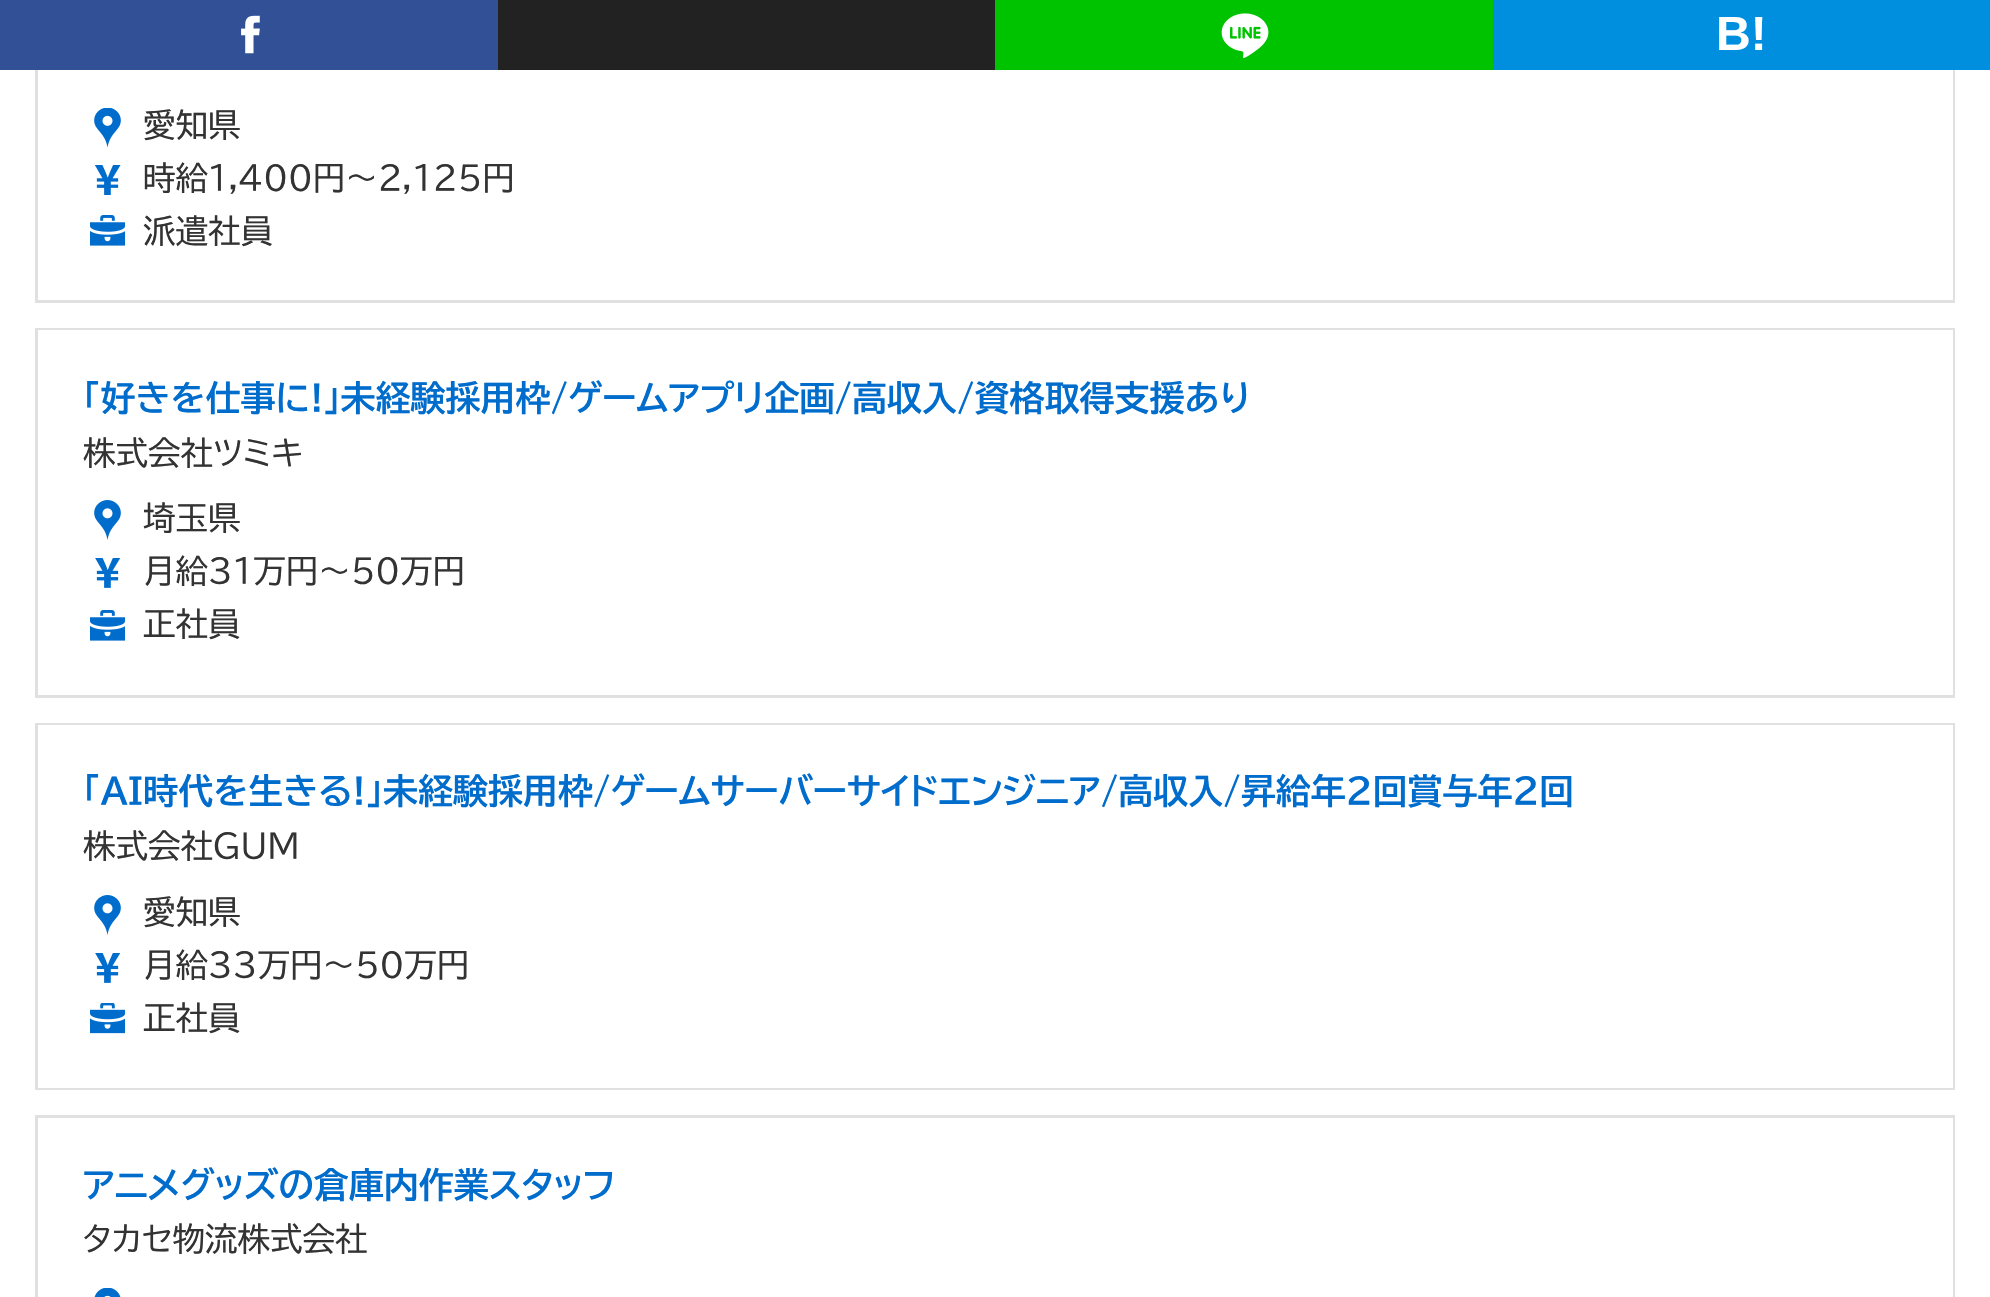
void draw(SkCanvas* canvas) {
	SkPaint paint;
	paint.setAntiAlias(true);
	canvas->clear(0xffffffff);
	paint.setStroke(true);
	paint.setStrokeWidth(3);
	paint.setColor(0xffe0e0e0);
	canvas->drawRect(SkRect::MakeXYWH(36.5, -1.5, 1917, 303), paint);
	paint.setStroke(false);
	paint.setColor(0xff315096);
	canvas->drawRect(SkRect::MakeXYWH(0, 0, 498, 70), paint);
	canvas->drawImageRect(SkImages::DeferredFromEncodedData(SkData::MakeFromFileName("img1.png")), SkRect::MakeXYWH(241, 15, 19, 39), SkSamplingOptions());
	paint.setColor(0xff222222);
	canvas->drawRect(SkRect::MakeXYWH(498, 0, 497, 70), paint);
	paint.setColor(0xff00c300);
	canvas->drawRect(SkRect::MakeXYWH(995, 0, 498, 70), paint);
	canvas->drawImageRect(SkImages::DeferredFromEncodedData(SkData::MakeFromFileName("img2.png")), SkRect::MakeXYWH(1221, 13, 48, 45), SkSamplingOptions());
	paint.setColor(0xff008fde);
	canvas->drawRect(SkRect::MakeXYWH(1493, 0, 497, 70), paint);
	SkFont f1(fontMgr->matchFamilyStyle("Liberation Sans", SkFontStyle::Bold()), 48);
	f1.setSubpixel(true);
	paint.setColor(0xffffffff);
	canvas->drawString("B!", 1716, 50, f1, paint);
	canvas->drawRect(SkRect::MakeXYWH(1952, 70, 1, 230), paint);
	canvas->drawImageRect(SkImages::DeferredFromEncodedData(SkData::MakeFromFileName("img3.png")), SkRect::MakeXYWH(94, 108, 27, 40), SkSamplingOptions());
	SkFont f2(fontMgr->matchFamilyStyle("BIZ UDPGothic", SkFontStyle::Normal()), 32.5);
	f2.setSubpixel(true);
	paint.setColor(0xff333333);
	canvas->drawString("愛知県", 143, 137, f2, paint);
	canvas->drawImageRect(SkImages::DeferredFromEncodedData(SkData::MakeFromFileName("img4.png")), SkRect::MakeXYWH(94, 165, 27, 30), SkSamplingOptions());
	canvas->drawString("時給1,400円～2,125円", 143, 190, f2, paint);
	canvas->drawImageRect(SkImages::DeferredFromEncodedData(SkData::MakeFromFileName("img5.png")), SkRect::MakeXYWH(90, 215, 35, 31), SkSamplingOptions());
	canvas->drawString("派遣社員", 143, 243, f2, paint);
	paint.setStroke(true);
	paint.setColor(0xffe0e0e0);
	canvas->drawRect(SkRect::MakeXYWH(36.5, 329.5, 1917, 367), paint);
	paint.setStroke(false);
	paint.setColor(0xffffffff);
	canvas->drawRect(SkRect::MakeXYWH(38, 330, 1915, 365), paint);
	SkFont f3(fontMgr->matchFamilyStyle("BIZ UDPGothic", SkFontStyle::Bold()), 35);
	f3.setSubpixel(true);
	paint.setColor(0xff006ccc);
	canvas->drawString("「好きを仕事に!」未経験採用枠/ゲームアプリ企画/高収入/資格取得支援あり", 83, 411, f3, paint);
	paint.setColor(0xff333333);
	canvas->drawString("株式会社ツミキ", 83, 465, f2, paint);
	canvas->drawImageRect(SkImages::DeferredFromEncodedData(SkData::MakeFromFileName("img6.png")), SkRect::MakeXYWH(94, 500, 27, 40), SkSamplingOptions());
	canvas->drawString("埼玉県", 143, 530, f2, paint);
	canvas->drawImageRect(SkImages::DeferredFromEncodedData(SkData::MakeFromFileName("img7.png")), SkRect::MakeXYWH(95, 558, 26, 30), SkSamplingOptions());
	canvas->drawString("月給31万円～50万円", 143, 583, f2, paint);
	canvas->drawImageRect(SkImages::DeferredFromEncodedData(SkData::MakeFromFileName("img5.png")), SkRect::MakeXYWH(90, 610, 35, 31), SkSamplingOptions());
	canvas->drawString("正社員", 143, 636, f2, paint);
	paint.setStroke(true);
	paint.setColor(0xffe0e0e0);
	canvas->drawRect(SkRect::MakeXYWH(36.5, 724.5, 1917, 364), paint);
	paint.setStroke(false);
	paint.setColor(0xffffffff);
	canvas->drawRect(SkRect::MakeXYWH(38, 725, 1915, 363), paint);
	paint.setColor(0xff006ccc);
	canvas->drawString("「AI時代を生きる!」未経験採用枠/ゲームサーバーサイドエンジニア/高収入/昇給年2回賞与年2回", 83, 804, f3, paint);
	paint.setColor(0xff333333);
	canvas->drawString("株式会社GUM", 83, 858, f2, paint);
	canvas->drawImageRect(SkImages::DeferredFromEncodedData(SkData::MakeFromFileName("img6.png")), SkRect::MakeXYWH(94, 895, 27, 40), SkSamplingOptions());
	canvas->drawString("愛知県", 143, 924, f2, paint);
	canvas->drawImageRect(SkImages::DeferredFromEncodedData(SkData::MakeFromFileName("img7.png")), SkRect::MakeXYWH(95, 953, 26, 30), SkSamplingOptions());
	canvas->drawString("月給33万円～50万円", 143, 977, f2, paint);
	canvas->drawImageRect(SkImages::DeferredFromEncodedData(SkData::MakeFromFileName("img8.png")), SkRect::MakeXYWH(90, 1003, 35, 31), SkSamplingOptions());
	canvas->drawString("正社員", 143, 1030, f2, paint);
	paint.setStroke(true);
	paint.setColor(0xffe0e0e0);
	canvas->drawRect(SkRect::MakeXYWH(36.5, 1116.5, 1917, 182), paint);
	paint.setStroke(false);
	paint.setColor(0xffffffff);
	canvas->drawRect(SkRect::MakeXYWH(1952, 1118, 1, 179), paint);
	paint.setColor(0xff006ccc);
	canvas->drawString("アニメグッズの倉庫内作業スタッフ", 83, 1198, f3, paint);
	paint.setColor(0xff333333);
	canvas->drawString("タカセ物流株式会社", 83, 1251, f2, paint);
	canvas->drawImageRect(SkImages::DeferredFromEncodedData(SkData::MakeFromFileName("img9.png")), SkRect::MakeXYWH(94, 1288, 27, 9), SkSamplingOptions());
}
